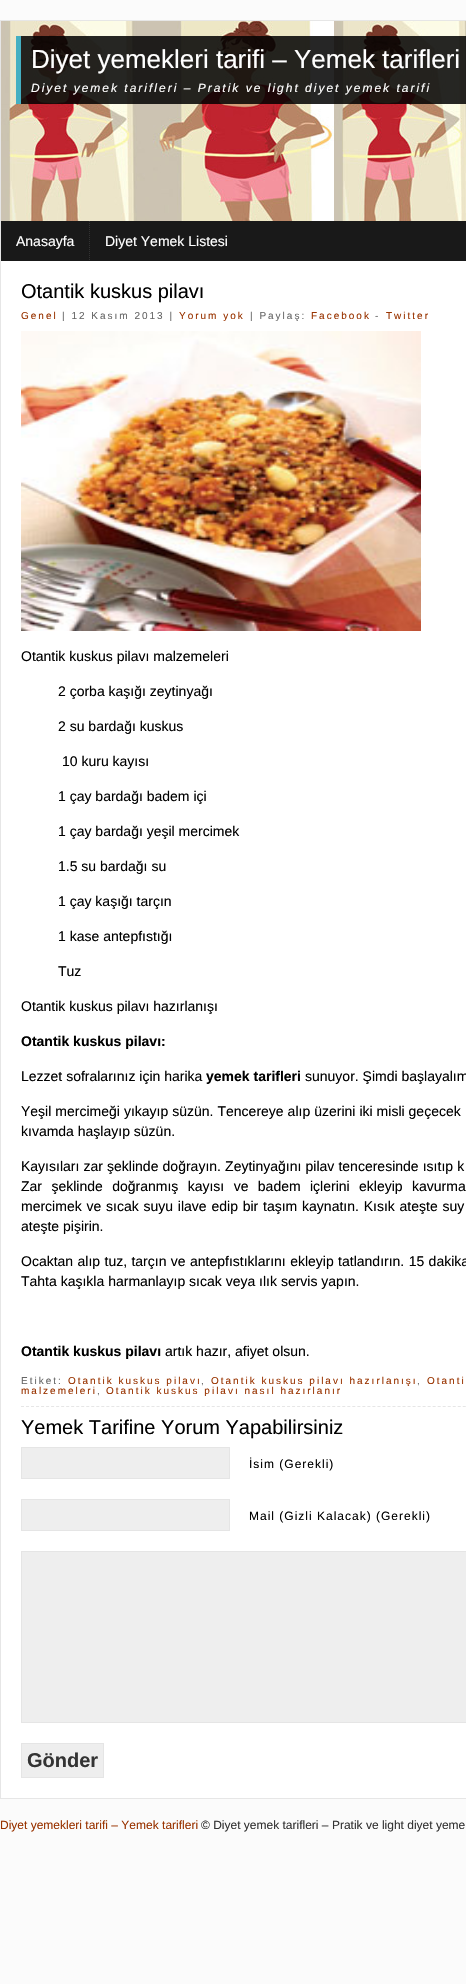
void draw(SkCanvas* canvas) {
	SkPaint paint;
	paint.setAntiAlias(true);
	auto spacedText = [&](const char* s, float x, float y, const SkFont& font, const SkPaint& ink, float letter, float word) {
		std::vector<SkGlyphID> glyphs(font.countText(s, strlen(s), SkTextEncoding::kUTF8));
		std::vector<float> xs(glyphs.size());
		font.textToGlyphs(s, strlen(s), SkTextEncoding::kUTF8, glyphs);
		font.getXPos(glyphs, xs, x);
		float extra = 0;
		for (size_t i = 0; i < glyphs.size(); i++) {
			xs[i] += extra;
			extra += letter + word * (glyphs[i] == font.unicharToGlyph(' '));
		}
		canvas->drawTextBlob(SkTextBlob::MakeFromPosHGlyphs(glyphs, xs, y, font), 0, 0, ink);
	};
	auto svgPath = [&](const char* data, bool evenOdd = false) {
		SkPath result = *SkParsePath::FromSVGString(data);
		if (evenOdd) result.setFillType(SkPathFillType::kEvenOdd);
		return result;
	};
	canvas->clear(0xfffbfbfb);
	paint.setColor(0xffffffff);
	canvas->drawRect(SkRect::MakeXYWH(1, 261, 465, 1537), paint);
	paint.setStroke(true);
	paint.setStrokeWidth(1);
	paint.setColor(0xffe6e6e6);
	canvas->drawRect(SkRect::MakeXYWH(0.5, 20.5, 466, 1778), paint);
	canvas->drawImageRect(SkImages::DeferredFromEncodedData(SkData::MakeFromFileName("img1.png")), SkRect::MakeXYWH(1, 21, 465, 200), SkSamplingOptions());
	paint.setStroke(false);
	paint.setColor(0xd9000000);
	canvas->drawRect(SkRect::MakeXYWH(21, 36, 445, 68), paint);
	paint.setColor(0xff44afc2);
	canvas->drawRect(SkRect::MakeXYWH(16, 36, 5, 68), paint);
	SkFont f1(fontMgr->matchFamilyStyle("Liberation Sans", SkFontStyle::Normal()), 26);
	f1.setSubpixel(true);
	paint.setColor(0xffffffff);
	canvas->drawString("Diyet yemekleri tarifi – Yemek tarifleri", 31, 68, f1, paint);
	SkFont f2(fontMgr->matchFamilyStyle("Liberation Sans", SkFontStyle::Italic()), 12);
	f2.setSubpixel(true);
	spacedText("Diyet yemek tarifleri – Pratik ve light diyet yemek tarifi", 31, 92, f2, paint, 2, 0);
	paint.setColor(0xff191919);
	canvas->drawRect(SkRect::MakeXYWH(1, 221, 465, 40), paint);
	SkFont f3(fontMgr->matchFamilyStyle("Liberation Sans", SkFontStyle::Normal()), 14);
	f3.setSubpixel(true);
	paint.setColor(0xffffffff);
	canvas->drawString("Anasayfa", 16, 246, f3, paint);
	paint.setStroke(true);
	paint.setColor(0xff323232);
	paint.setPathEffect(SkDashPathEffect::Make({{1, 1}}, 0));
	canvas->drawPath(svgPath("M89.5 221V261"), paint);
	paint.setPathEffect(nullptr);
	paint.setStroke(false);
	paint.setColor(0xffffffff);
	canvas->drawString("Diyet Yemek Listesi", 105, 246, f3, paint);
	paint.setStroke(true);
	paint.setColor(0xffe6e6e6);
	paint.setPathEffect(SkDashPathEffect::Make({{3, 2.02f}}, 0));
	canvas->drawPath(svgPath("M21 1406.5H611"), paint);
	paint.setPathEffect(nullptr);
	SkFont f4(fontMgr->matchFamilyStyle("Liberation Sans", SkFontStyle::Normal()), 20);
	f4.setSubpixel(true);
	paint.setStroke(false);
	paint.setColor(0xff000000);
	canvas->drawString("Otantik kuskus pilavı", 21, 298, f4, paint);
	SkFont f5(fontMgr->matchFamilyStyle("Liberation Sans", SkFontStyle::Normal()), 10);
	f5.setSubpixel(true);
	paint.setColor(0xff993300);
	spacedText("Genel", 21, 319, f5, paint, 2, 0);
	paint.setColor(0xff666666);
	spacedText("| 12 Kasım 2013 |", 62, 319, f5, paint, 2, 0);
	paint.setColor(0xff993300);
	spacedText("Yorum yok", 179, 319, f5, paint, 2, 0);
	paint.setColor(0xff666666);
	spacedText("| Paylaş:", 250, 319, f5, paint, 2, 0);
	paint.setColor(0xff993300);
	spacedText("Facebook", 311, 319, f5, paint, 2, 0);
	paint.setColor(0xff666666);
	spacedText("-", 375, 319, f5, paint, 2, 0);
	paint.setColor(0xff993300);
	spacedText("Twitter", 386, 319, f5, paint, 2, 0);
	canvas->drawImageRect(SkImages::DeferredFromEncodedData(SkData::MakeFromFileName("img2.png")), SkRect::MakeXYWH(21, 331, 400, 300), SkSamplingOptions());
	paint.setColor(0xff000000);
	canvas->drawString("Otantik kuskus pilavı malzemeleri", 21, 661, f3, paint);
	canvas->drawString("2 çorba kaşığı zeytinyağı", 58, 696, f3, paint);
	canvas->drawString("2 su bardağı kuskus", 58, 731, f3, paint);
	canvas->drawString("10 kuru kayısı", 62, 766, f3, paint);
	canvas->drawString("1 çay bardağı badem içi", 58, 801, f3, paint);
	canvas->drawString("1 çay bardağı yeşil mercimek", 58, 836, f3, paint);
	canvas->drawString("1.5 su bardağı su", 58, 871, f3, paint);
	canvas->drawString("1 çay kaşığı tarçın", 58, 906, f3, paint);
	canvas->drawString("1 kase antepfıstığı", 58, 941, f3, paint);
	canvas->drawString("Tuz", 58, 976, f3, paint);
	canvas->drawString("Otantik kuskus pilavı hazırlanışı", 21, 1011, f3, paint);
	SkFont f6(fontMgr->matchFamilyStyle("Liberation Sans", SkFontStyle::Bold()), 14);
	f6.setSubpixel(true);
	canvas->drawString("Otantik kuskus pilavı:", 21, 1046, f6, paint);
	canvas->drawString("Lezzet sofralarınız için harika", 21, 1081, f3, paint);
	canvas->drawString("yemek tarifleri", 206, 1081, f6, paint);
	canvas->drawString("sunuyor. Şimdi başlayalım", 305, 1081, f3, paint);
	spacedText("Yeşil mercimeği yıkayıp süzün. Tencereye alıp üzerini iki misli geçecek", 21, 1116, f3, paint, 0, 0.1);
	canvas->drawString("kıvamda haşlayıp süzün.", 21, 1136, f3, paint);
	spacedText("Kayısıları zar şeklinde doğrayın. Zeytinyağını pilav tenceresinde ısıtıp k", 21, 1171, f3, paint, 0, 0.25);
	spacedText("Zar şeklinde doğranmış kayısı ve badem içlerini ekleyip kavurma", 21, 1191, f3, paint, 0, 5.5);
	spacedText("mercimek ve sıcak suyu ilave edip bir taşım kaynatın. Kısık ateşte suy", 21, 1211, f3, paint, 0, 0.9);
	canvas->drawString("ateşte pişirin.", 21, 1231, f3, paint);
	spacedText("Ocaktan alıp tuz, tarçın ve antepfıstıklarını ekleyip tatlandırın. 15 dakika", 21, 1266, f3, paint, 0, 0.5);
	canvas->drawString("Tahta kaşıkla harmanlayıp sıcak veya ılık servis yapın.", 21, 1286, f3, paint);
	canvas->drawString("Otantik kuskus pilavı", 21, 1356, f6, paint);
	canvas->drawString("artık hazır, afiyet olsun.", 165, 1356, f3, paint);
	paint.setColor(0xff666666);
	spacedText("Etiket:", 21, 1384, f5, paint, 2, 0);
	paint.setColor(0xff993300);
	spacedText("Otantik kuskus pilavı", 68, 1384, f5, paint, 2, 0);
	paint.setColor(0xff666666);
	spacedText(",", 201, 1384, f5, paint, 2, 0);
	paint.setColor(0xff993300);
	spacedText("Otantik kuskus pilavı hazırlanışı", 211, 1384, f5, paint, 2, 0);
	paint.setColor(0xff666666);
	spacedText(",", 417, 1384, f5, paint, 2, 0);
	paint.setColor(0xff993300);
	spacedText("Otanti", 427, 1384, f5, paint, 2, 0);
	spacedText("malzemeleri", 21, 1394, f5, paint, 2, 0);
	paint.setColor(0xff666666);
	spacedText(",", 97, 1394, f5, paint, 2, 0);
	paint.setColor(0xff993300);
	spacedText("Otantik kuskus pilavı nasıl hazırlanır", 106, 1394, f5, paint, 2, 0);
	paint.setColor(0xff000000);
	canvas->drawString("Yemek Tarifine Yorum Yapabilirsiniz", 21, 1434, f4, paint);
	paint.setColor(0xffeeeeee);
	canvas->drawRect(SkRect::MakeXYWH(21.5, 1447.5, 208, 31), paint);
	paint.setStroke(true);
	paint.setColor(0xffe5e5e5);
	canvas->drawRect(SkRect::MakeXYWH(21.5, 1447.5, 208, 31), paint);
	SkFont f7(fontMgr->matchFamilyStyle("Liberation Sans", SkFontStyle::Normal()), 12);
	f7.setSubpixel(true);
	paint.setStroke(false);
	paint.setColor(0xff000000);
	spacedText("İsim (Gerekli)", 249, 1468, f7, paint, 1, 0);
	paint.setColor(0xffeeeeee);
	canvas->drawRect(SkRect::MakeXYWH(21.5, 1499.5, 208, 31), paint);
	paint.setStroke(true);
	paint.setColor(0xffe5e5e5);
	canvas->drawRect(SkRect::MakeXYWH(21.5, 1499.5, 208, 31), paint);
	paint.setStroke(false);
	paint.setColor(0xff000000);
	spacedText("Mail (Gizli Kalacak) (Gerekli)", 249, 1520, f7, paint, 1, 0);
	paint.setColor(0xffeeeeee);
	canvas->drawRect(SkRect::MakeXYWH(21.5, 1551.5, 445, 171), paint);
	paint.setStroke(true);
	paint.setColor(0xffe5e5e5);
	canvas->drawRect(SkRect::MakeXYWH(21.5, 1551.5, 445, 171), paint);
	paint.setStroke(false);
	paint.setColor(0xffeeeeee);
	canvas->drawRect(SkRect::MakeXYWH(21.5, 1743.5, 82, 34), paint);
	paint.setStroke(true);
	paint.setColor(0xffe5e5e5);
	canvas->drawRect(SkRect::MakeXYWH(21.5, 1743.5, 82, 34), paint);
	SkFont f8(fontMgr->matchFamilyStyle("Liberation Sans", SkFontStyle::Bold()), 20);
	f8.setSubpixel(true);
	paint.setStroke(false);
	paint.setColor(0xff333333);
	canvas->drawString("Gönder", 27, 1767, f8, paint);
	paint.setColor(0xff993300);
	canvas->drawString("Diyet yemekleri tarifi – Yemek tarifleri", 0, 1829, f7, paint);
	paint.setColor(0xff333333);
	canvas->drawString("© Diyet yemek tarifleri – Pratik ve light diyet yeme", 201, 1829, f7, paint);
}
